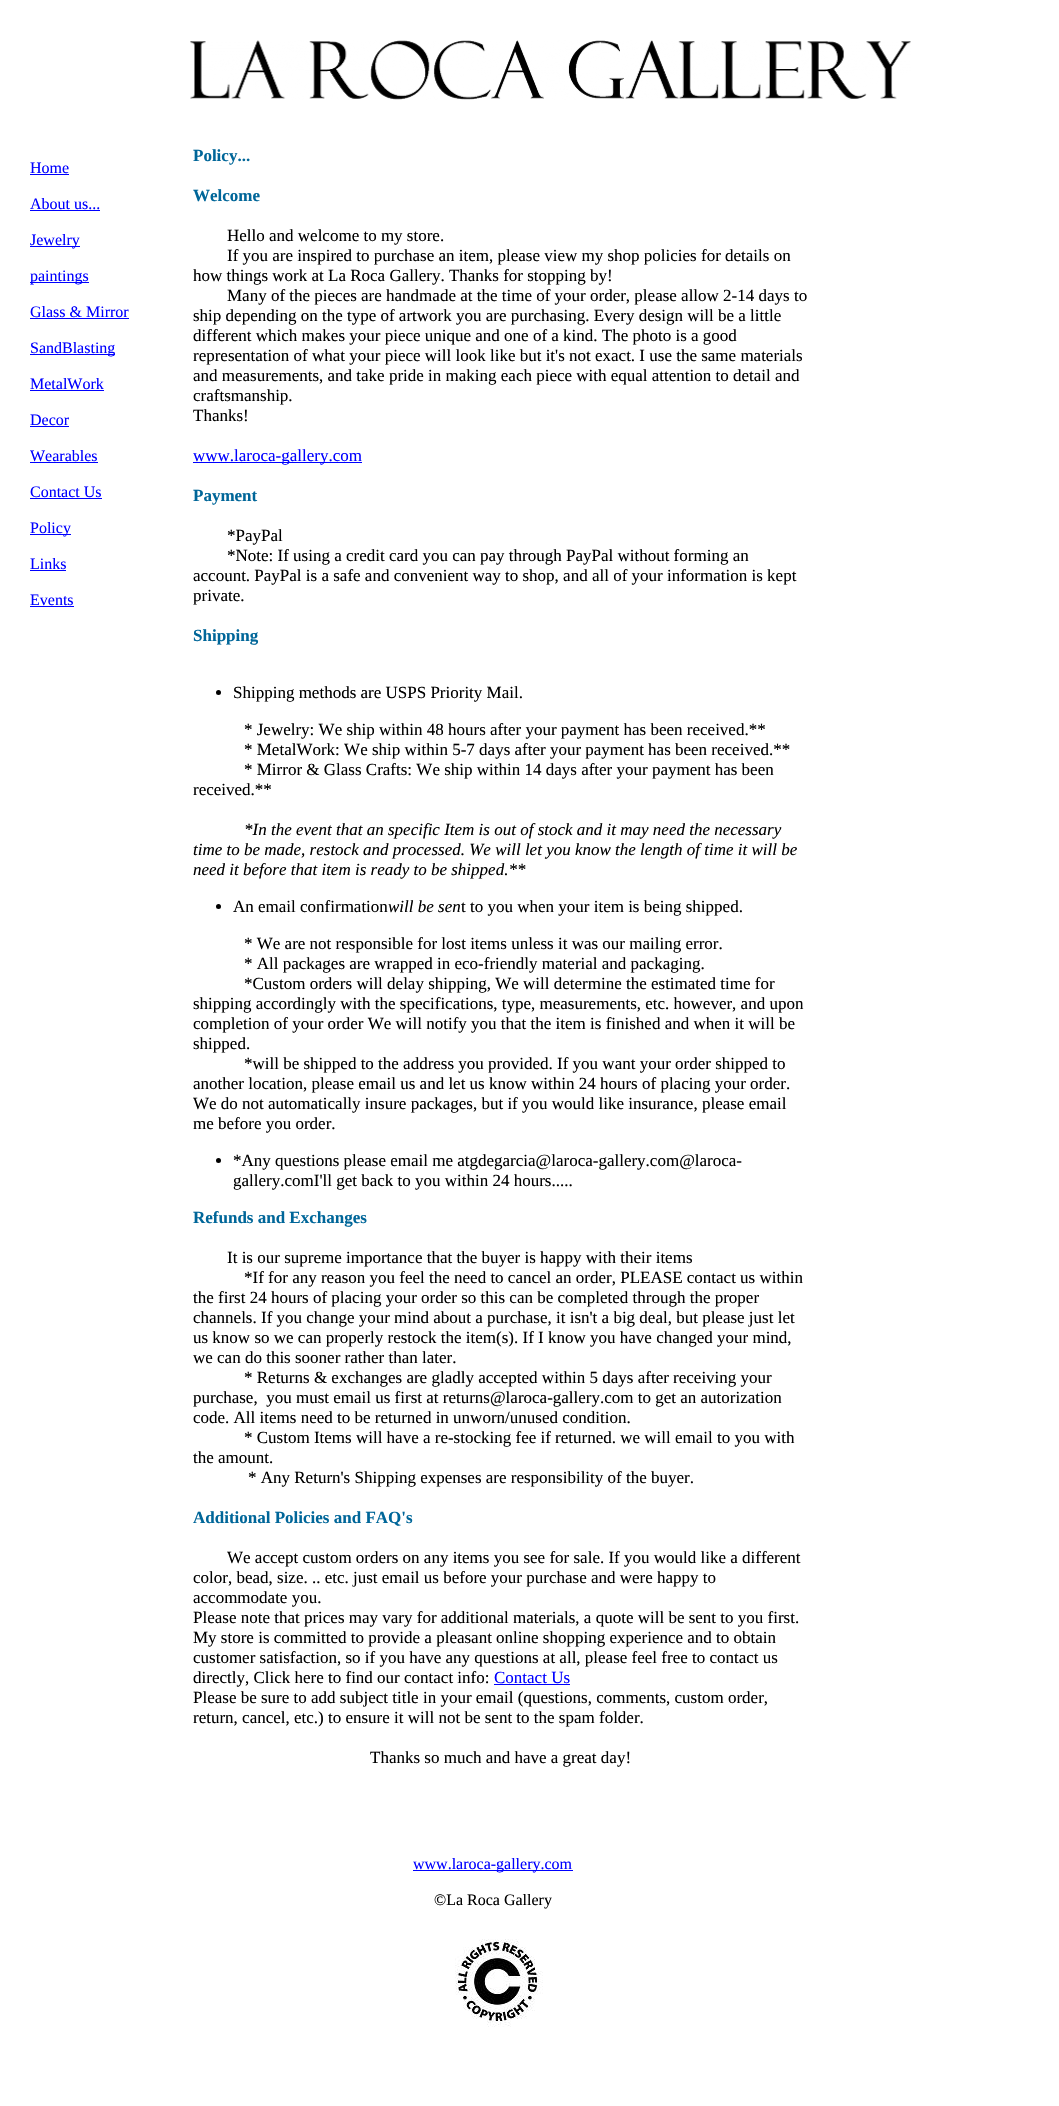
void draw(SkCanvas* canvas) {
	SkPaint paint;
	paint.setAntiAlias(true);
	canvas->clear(0xffffffff);
	canvas->drawImageRect(SkImages::DeferredFromEncodedData(SkData::MakeFromFileName("img1.png")), SkRect::MakeXYWH(190, 40, 721, 60), SkSamplingOptions());
	SkFont f1(fontMgr->matchFamilyStyle("Liberation Serif", SkFontStyle::Normal()), 16);
	f1.setSubpixel(true);
	paint.setColor(0xff0000ff);
	canvas->drawString("Home", 30, 173, f1, paint);
	canvas->drawRect(SkRect::MakeXYWH(30, 174, 39, 1), paint);
	canvas->drawString("About us...", 30, 209, f1, paint);
	canvas->drawRect(SkRect::MakeXYWH(30, 210, 70, 1), paint);
	canvas->drawRect(SkRect::MakeXYWH(30, 246, 50, 1), paint);
	canvas->drawString("Jewelry", 30, 245, f1, paint);
	canvas->drawRect(SkRect::MakeXYWH(30, 282, 59, 1), paint);
	canvas->drawString("paintings", 30, 281, f1, paint);
	canvas->drawString("Glass & Mirror", 30, 317, f1, paint);
	canvas->drawRect(SkRect::MakeXYWH(30, 318, 99, 1), paint);
	canvas->drawRect(SkRect::MakeXYWH(30, 354, 85, 1), paint);
	canvas->drawString("SandBlasting", 30, 353, f1, paint);
	canvas->drawString("MetalWork", 30, 389, f1, paint);
	canvas->drawRect(SkRect::MakeXYWH(30, 390, 74, 1), paint);
	canvas->drawString("Decor", 30, 425, f1, paint);
	canvas->drawRect(SkRect::MakeXYWH(30, 426, 39, 1), paint);
	canvas->drawString("Wearables", 30, 461, f1, paint);
	canvas->drawRect(SkRect::MakeXYWH(30, 462, 68, 1), paint);
	canvas->drawString("Contact Us", 30, 497, f1, paint);
	canvas->drawRect(SkRect::MakeXYWH(30, 498, 72, 1), paint);
	canvas->drawRect(SkRect::MakeXYWH(30, 534, 41, 1), paint);
	canvas->drawString("Policy", 30, 533, f1, paint);
	canvas->drawString("Links", 30, 569, f1, paint);
	canvas->drawRect(SkRect::MakeXYWH(30, 570, 36, 1), paint);
	canvas->drawString("Events", 30, 605, f1, paint);
	canvas->drawRect(SkRect::MakeXYWH(30, 606, 44, 1), paint);
	SkFont f2(fontMgr->matchFamilyStyle("Liberation Serif", SkFontStyle::Bold()), 17);
	f2.setSubpixel(true);
	paint.setColor(0xff006699);
	canvas->drawString("Policy...", 193, 161, f2, paint);
	canvas->drawString("Welcome", 193, 201, f2, paint);
	SkFont f3(fontMgr->matchFamilyStyle("Liberation Serif", SkFontStyle::Normal()), 17);
	f3.setSubpixel(true);
	paint.setColor(0xff000000);
	canvas->drawString("Hello and welcome to my store.", 227, 241, f3, paint);
	canvas->drawString("If you are inspired to purchase an item, please view my shop policies for details on", 227, 261, f3, paint);
	canvas->drawString("how things work at La Roca Gallery. Thanks for stopping by!", 193, 281, f3, paint);
	canvas->drawString("Many of the pieces are handmade at the time of your order, please allow 2-14 days to", 227, 301, f3, paint);
	canvas->drawString("ship depending on the type of artwork you are purchasing. Every design will be a little", 193, 321, f3, paint);
	canvas->drawString("different which makes your piece unique and one of a kind. The photo is a good", 193, 341, f3, paint);
	canvas->drawString("representation of what your piece will look like but it's not exact. I use the same materials", 193, 361, f3, paint);
	canvas->drawString("and measurements, and take pride in making each piece with equal attention to detail and", 193, 381, f3, paint);
	canvas->drawString("craftsmanship.", 193, 401, f3, paint);
	canvas->drawString("Thanks!", 193, 421, f3, paint);
	paint.setColor(0xff0000ff);
	canvas->drawRect(SkRect::MakeXYWH(193, 462, 169, 1), paint);
	canvas->drawString("www.laroca-gallery.com", 193, 461, f3, paint);
	paint.setColor(0xff006699);
	canvas->drawString("Payment", 193, 501, f2, paint);
	paint.setColor(0xff000000);
	canvas->drawString("*PayPal", 227, 541, f3, paint);
	canvas->drawString("*Note: If using a credit card you can pay through PayPal without forming an", 227, 561, f3, paint);
	canvas->drawString("account. PayPal is a safe and convenient way to shop, and all of your information is kept", 193, 581, f3, paint);
	canvas->drawString("private.", 193, 601, f3, paint);
	paint.setColor(0xff006699);
	canvas->drawString("Shipping", 193, 641, f2, paint);
	paint.setColor(0xff000000);
	canvas->drawCircle(218.5, 692.5, 2.5, paint);
	canvas->drawString("Shipping methods are USPS Priority Mail.", 233, 698, f3, paint);
	canvas->drawString("* Jewelry: We ship within 48 hours after your payment has been received.**", 244, 735, f3, paint);
	canvas->drawString("* MetalWork: We ship within 5-7 days after your payment has been received.**", 244, 755, f3, paint);
	canvas->drawString("* Mirror & Glass Crafts: We ship within 14 days after your payment has been", 244, 775, f3, paint);
	canvas->drawString("received.**", 193, 795, f3, paint);
	SkFont f4(fontMgr->matchFamilyStyle("Liberation Serif", SkFontStyle::Italic()), 17);
	f4.setSubpixel(true);
	canvas->drawString("*In the event that an specific Item is out of stock and it may need the necessary", 244, 835, f4, paint);
	canvas->drawString("time to be made, restock and processed. We will let you know the length of time it will be", 193, 855, f4, paint);
	canvas->drawString("need it before that item is ready to be shipped.**", 193, 875, f4, paint);
	canvas->drawCircle(218.5, 906.5, 2.5, paint);
	canvas->drawString("An email confirmation", 233, 912, f3, paint);
	canvas->drawString("will be sen", 388, 912, f4, paint);
	canvas->drawString("t to you when your item is being shipped.", 461, 912, f3, paint);
	canvas->drawString("* We are not responsible for lost items unless it was our mailing error.", 244, 949, f3, paint);
	canvas->drawString("* All packages are wrapped in eco-friendly material and packaging.", 244, 969, f3, paint);
	canvas->drawString("*Custom orders will delay shipping, We will determine the estimated time for", 244, 989, f3, paint);
	canvas->drawString("shipping accordingly with the specifications, type, measurements, etc. however, and upon", 193, 1009, f3, paint);
	canvas->drawString("completion of your order We will notify you that the item is finished and when it will be", 193, 1029, f3, paint);
	canvas->drawString("shipped.", 193, 1049, f3, paint);
	canvas->drawString("*will be shipped to the address you provided. If you want your order shipped to", 244, 1069, f3, paint);
	canvas->drawString("another location, please email us and let us know within 24 hours of placing your order.", 193, 1089, f3, paint);
	canvas->drawString("We do not automatically insure packages, but if you would like insurance, please email", 193, 1109, f3, paint);
	canvas->drawString("me before you order.", 193, 1129, f3, paint);
	canvas->drawCircle(218.5, 1160.5, 2.5, paint);
	canvas->drawString("*Any questions please email me atgdegarcia@laroca-gallery.com@laroca-", 233, 1166, f3, paint);
	canvas->drawString("gallery.comI'll get back to you within 24 hours.....", 233, 1186, f3, paint);
	paint.setColor(0xff006699);
	canvas->drawString("Refunds and Exchanges", 193, 1223, f2, paint);
	paint.setColor(0xff000000);
	canvas->drawString("It is our supreme importance that the buyer is happy with their items", 227, 1263, f3, paint);
	canvas->drawString("*If for any reason you feel the need to cancel an order, PLEASE contact us within", 244, 1283, f3, paint);
	canvas->drawString("the first 24 hours of placing your order so this can be completed through the proper", 193, 1303, f3, paint);
	canvas->drawString("channels. If you change your mind about a purchase, it isn't a big deal, but please just let", 193, 1323, f3, paint);
	canvas->drawString("us know so we can properly restock the item(s). If I know you have changed your mind,", 193, 1343, f3, paint);
	canvas->drawString("we can do this sooner rather than later.", 193, 1363, f3, paint);
	canvas->drawString("* Returns & exchanges are gladly accepted within 5 days after receiving your", 244, 1383, f3, paint);
	canvas->drawString("purchase,  you must email us first at returns@laroca-gallery.com to get an autorization", 193, 1403, f3, paint);
	canvas->drawString("code. All items need to be returned in unworn/unused condition.", 193, 1423, f3, paint);
	canvas->drawString("* Custom Items will have a re-stocking fee if returned. we will email to you with", 244, 1443, f3, paint);
	canvas->drawString("the amount.", 193, 1463, f3, paint);
	canvas->drawString("* Any Return's Shipping expenses are responsibility of the buyer.", 248, 1483, f3, paint);
	paint.setColor(0xff006699);
	canvas->drawString("Additional Policies and FAQ's", 193, 1523, f2, paint);
	paint.setColor(0xff000000);
	canvas->drawString("We accept custom orders on any items you see for sale. If you would like a different", 227, 1563, f3, paint);
	canvas->drawString("color, bead, size. .. etc. just email us before your purchase and were happy to", 193, 1583, f3, paint);
	canvas->drawString("accommodate you.", 193, 1603, f3, paint);
	canvas->drawString("Please note that prices may vary for additional materials, a quote will be sent to you first.", 193, 1623, f3, paint);
	canvas->drawString("My store is committed to provide a pleasant online shopping experience and to obtain", 193, 1643, f3, paint);
	canvas->drawString("customer satisfaction, so if you have any questions at all, please feel free to contact us", 193, 1663, f3, paint);
	canvas->drawString("directly, Click here to find our contact info:", 193, 1683, f3, paint);
	paint.setColor(0xff0000ff);
	canvas->drawString("Contact Us", 494, 1683, f3, paint);
	canvas->drawRect(SkRect::MakeXYWH(494, 1684, 76, 1), paint);
	paint.setColor(0xff000000);
	canvas->drawString("Please be sure to add subject title in your email (questions, comments, custom order,", 193, 1703, f3, paint);
	canvas->drawString("return, cancel, etc.) to ensure it will not be sent to the spam folder.", 193, 1723, f3, paint);
	canvas->drawString("Thanks so much and have a great day!", 370, 1763, f3, paint);
	paint.setColor(0xff0000ff);
	canvas->drawRect(SkRect::MakeXYWH(413, 1870, 160, 1), paint);
	canvas->drawString("www.laroca-gallery.com", 413, 1869, f1, paint);
	paint.setColor(0xff000000);
	canvas->drawString("©La Roca Gallery", 434, 1905, f1, paint);
	canvas->drawImageRect(SkImages::DeferredFromEncodedData(SkData::MakeFromFileName("img2.png")), SkRect::MakeXYWH(455, 1939, 88, 88), SkSamplingOptions());
}
